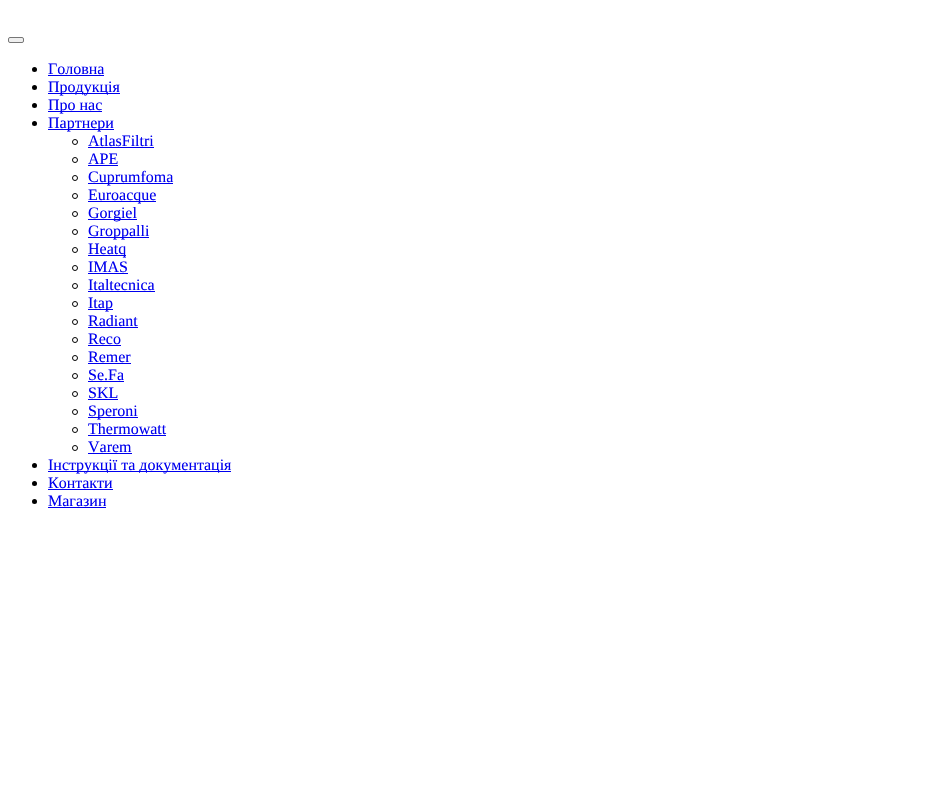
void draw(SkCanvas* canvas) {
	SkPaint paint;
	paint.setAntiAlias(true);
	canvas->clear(0xffffffff);
	paint.setColor(0xffefefef);
	canvas->drawRoundRect(SkRect::MakeXYWH(8.5, 37.5, 15, 5), 1.5, 1.5, paint);
	paint.setStroke(true);
	paint.setStrokeWidth(1);
	paint.setColor(0xff767676);
	canvas->drawRoundRect(SkRect::MakeXYWH(8.5, 37.5, 15, 5), 1.5, 1.5, paint);
	paint.setStroke(false);
	paint.setColor(0xff000000);
	canvas->drawCircle(34.5, 69.5, 2.5, paint);
	SkFont f1(fontMgr->matchFamilyStyle("Liberation Serif", SkFontStyle::Normal()), 16);
	f1.setSubpixel(true);
	paint.setColor(0xff0000ee);
	canvas->drawString("Головна", 48, 74, f1, paint);
	canvas->drawRect(SkRect::MakeXYWH(48, 75, 56, 1), paint);
	paint.setColor(0xff000000);
	canvas->drawCircle(34.5, 87.5, 2.5, paint);
	paint.setColor(0xff0000ee);
	canvas->drawRect(SkRect::MakeXYWH(48, 93, 72, 1), paint);
	canvas->drawString("Продукція", 48, 92, f1, paint);
	paint.setColor(0xff000000);
	canvas->drawCircle(34.5, 105.5, 2.5, paint);
	paint.setColor(0xff0000ee);
	canvas->drawRect(SkRect::MakeXYWH(48, 111, 54, 1), paint);
	canvas->drawString("Про нас", 48, 110, f1, paint);
	paint.setColor(0xff000000);
	canvas->drawCircle(34.5, 123.5, 2.5, paint);
	paint.setColor(0xff0000ee);
	canvas->drawRect(SkRect::MakeXYWH(48, 129, 66, 1), paint);
	canvas->drawString("Партнери", 48, 128, f1, paint);
	paint.setStroke(true);
	paint.setColor(0xff000000);
	canvas->drawCircle(75, 142, 2.5, paint);
	paint.setStroke(false);
	paint.setColor(0xff0000ee);
	canvas->drawString("AtlasFiltri", 88, 146, f1, paint);
	canvas->drawRect(SkRect::MakeXYWH(88, 147, 66, 1), paint);
	paint.setStroke(true);
	paint.setColor(0xff000000);
	canvas->drawCircle(75, 160, 2.5, paint);
	paint.setStroke(false);
	paint.setColor(0xff0000ee);
	canvas->drawString("APE", 88, 164, f1, paint);
	canvas->drawRect(SkRect::MakeXYWH(88, 165, 30, 1), paint);
	paint.setStroke(true);
	paint.setColor(0xff000000);
	canvas->drawCircle(75, 178, 2.5, paint);
	paint.setStroke(false);
	paint.setColor(0xff0000ee);
	canvas->drawRect(SkRect::MakeXYWH(88, 183, 85, 1), paint);
	canvas->drawString("Cuprumfoma", 88, 182, f1, paint);
	paint.setStroke(true);
	paint.setColor(0xff000000);
	canvas->drawCircle(75, 196, 2.5, paint);
	paint.setStroke(false);
	paint.setColor(0xff0000ee);
	canvas->drawRect(SkRect::MakeXYWH(88, 201, 68, 1), paint);
	canvas->drawString("Euroacque", 88, 200, f1, paint);
	paint.setStroke(true);
	paint.setColor(0xff000000);
	canvas->drawCircle(75, 214, 2.5, paint);
	paint.setStroke(false);
	paint.setColor(0xff0000ee);
	canvas->drawRect(SkRect::MakeXYWH(88, 219, 49, 1), paint);
	canvas->drawString("Gorgiel", 88, 218, f1, paint);
	paint.setStroke(true);
	paint.setColor(0xff000000);
	canvas->drawCircle(75, 232, 2.5, paint);
	paint.setStroke(false);
	paint.setColor(0xff0000ee);
	canvas->drawRect(SkRect::MakeXYWH(88, 237, 61, 1), paint);
	canvas->drawString("Groppalli", 88, 236, f1, paint);
	paint.setStroke(true);
	paint.setColor(0xff000000);
	canvas->drawCircle(75, 250, 2.5, paint);
	paint.setStroke(false);
	paint.setColor(0xff0000ee);
	canvas->drawRect(SkRect::MakeXYWH(88, 255, 38, 1), paint);
	canvas->drawString("Heatq", 88, 254, f1, paint);
	paint.setStroke(true);
	paint.setColor(0xff000000);
	canvas->drawCircle(75, 268, 2.5, paint);
	paint.setStroke(false);
	paint.setColor(0xff0000ee);
	canvas->drawString("IMAS", 88, 272, f1, paint);
	canvas->drawRect(SkRect::MakeXYWH(88, 273, 40, 1), paint);
	paint.setStroke(true);
	paint.setColor(0xff000000);
	canvas->drawCircle(75, 286, 2.5, paint);
	paint.setStroke(false);
	paint.setColor(0xff0000ee);
	canvas->drawString("Italtecnica", 88, 290, f1, paint);
	canvas->drawRect(SkRect::MakeXYWH(88, 291, 67, 1), paint);
	paint.setStroke(true);
	paint.setColor(0xff000000);
	canvas->drawCircle(75, 304, 2.5, paint);
	paint.setStroke(false);
	paint.setColor(0xff0000ee);
	canvas->drawRect(SkRect::MakeXYWH(88, 309, 25, 1), paint);
	canvas->drawString("Itap", 88, 308, f1, paint);
	paint.setStroke(true);
	paint.setColor(0xff000000);
	canvas->drawCircle(75, 322, 2.5, paint);
	paint.setStroke(false);
	paint.setColor(0xff0000ee);
	canvas->drawString("Radiant", 88, 326, f1, paint);
	canvas->drawRect(SkRect::MakeXYWH(88, 327, 50, 1), paint);
	paint.setStroke(true);
	paint.setColor(0xff000000);
	canvas->drawCircle(75, 340, 2.5, paint);
	paint.setStroke(false);
	paint.setColor(0xff0000ee);
	canvas->drawString("Reco", 88, 344, f1, paint);
	canvas->drawRect(SkRect::MakeXYWH(88, 345, 33, 1), paint);
	paint.setStroke(true);
	paint.setColor(0xff000000);
	canvas->drawCircle(75, 358, 2.5, paint);
	paint.setStroke(false);
	paint.setColor(0xff0000ee);
	canvas->drawString("Remer", 88, 362, f1, paint);
	canvas->drawRect(SkRect::MakeXYWH(88, 363, 43, 1), paint);
	paint.setStroke(true);
	paint.setColor(0xff000000);
	canvas->drawCircle(75, 376, 2.5, paint);
	paint.setStroke(false);
	paint.setColor(0xff0000ee);
	canvas->drawString("Se.Fa", 88, 380, f1, paint);
	canvas->drawRect(SkRect::MakeXYWH(88, 381, 36, 1), paint);
	paint.setStroke(true);
	paint.setColor(0xff000000);
	canvas->drawCircle(75, 394, 2.5, paint);
	paint.setStroke(false);
	paint.setColor(0xff0000ee);
	canvas->drawString("SKL", 88, 398, f1, paint);
	canvas->drawRect(SkRect::MakeXYWH(88, 399, 30, 1), paint);
	paint.setStroke(true);
	paint.setColor(0xff000000);
	canvas->drawCircle(75, 412, 2.5, paint);
	paint.setStroke(false);
	paint.setColor(0xff0000ee);
	canvas->drawRect(SkRect::MakeXYWH(88, 417, 50, 1), paint);
	canvas->drawString("Speroni", 88, 416, f1, paint);
	paint.setStroke(true);
	paint.setColor(0xff000000);
	canvas->drawCircle(75, 430, 2.5, paint);
	paint.setStroke(false);
	paint.setColor(0xff0000ee);
	canvas->drawString("Thermowatt", 88, 434, f1, paint);
	canvas->drawRect(SkRect::MakeXYWH(88, 435, 78, 1), paint);
	paint.setStroke(true);
	paint.setColor(0xff000000);
	canvas->drawCircle(75, 448, 2.5, paint);
	paint.setStroke(false);
	paint.setColor(0xff0000ee);
	canvas->drawString("Varem", 88, 452, f1, paint);
	canvas->drawRect(SkRect::MakeXYWH(88, 453, 44, 1), paint);
	paint.setColor(0xff000000);
	canvas->drawCircle(34.5, 465.5, 2.5, paint);
	paint.setColor(0xff0000ee);
	canvas->drawRect(SkRect::MakeXYWH(48, 471, 183, 1), paint);
	canvas->drawString("Інструкції та документація", 48, 470, f1, paint);
	paint.setColor(0xff000000);
	canvas->drawCircle(34.5, 483.5, 2.5, paint);
	paint.setColor(0xff0000ee);
	canvas->drawString("Контакти", 48, 488, f1, paint);
	canvas->drawRect(SkRect::MakeXYWH(48, 489, 65, 1), paint);
	paint.setColor(0xff000000);
	canvas->drawCircle(34.5, 501.5, 2.5, paint);
	paint.setColor(0xff0000ee);
	canvas->drawString("Магазин", 48, 506, f1, paint);
	canvas->drawRect(SkRect::MakeXYWH(48, 507, 58, 1), paint);
}
